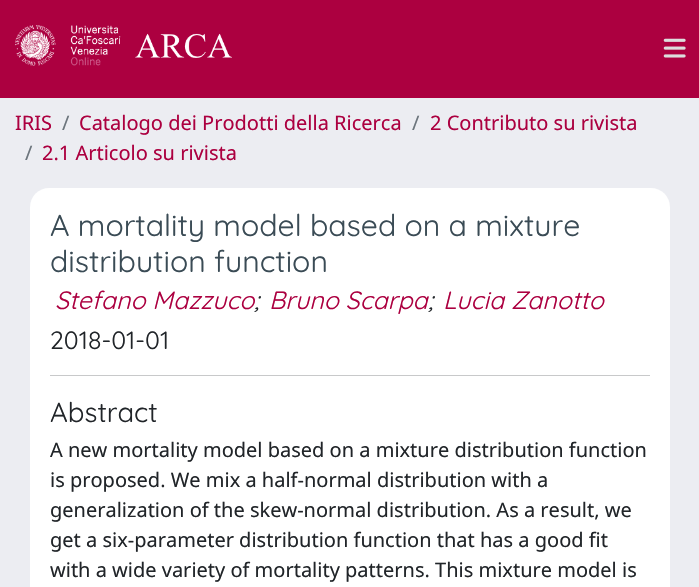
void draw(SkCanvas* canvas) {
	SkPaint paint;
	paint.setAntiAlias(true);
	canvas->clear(0xffecedf2);
	paint.setColor(0xffac0040);
	canvas->drawRect(SkRect::MakeXYWH(0, 0, 699, 98), paint);
	canvas->drawImageRect(SkImages::DeferredFromEncodedData(SkData::MakeFromFileName("img1.png")), SkRect::MakeXYWH(15, 25, 217, 41), SkSamplingOptions());
	canvas->drawImageRect(SkImages::DeferredFromEncodedData(SkData::MakeFromFileName("img2.png")), SkRect::MakeXYWH(663, 38, 23, 20), SkSamplingOptions());
	SkFont f1(fontMgr->matchFamilyStyle("Noto Sans", SkFontStyle::Normal()), 20);
	f1.setSubpixel(true);
	canvas->drawString("IRIS", 15, 130, f1, paint);
	paint.setColor(0xff6c757d);
	canvas->drawString("/", 62, 130, f1, paint);
	paint.setColor(0xffac0040);
	canvas->drawString("Catalogo dei Prodotti della Ricerca", 79, 130, f1, paint);
	paint.setColor(0xff6c757d);
	canvas->drawString("/", 412, 130, f1, paint);
	paint.setColor(0xffac0040);
	canvas->drawString("2 Contributo su rivista", 430, 130, f1, paint);
	paint.setColor(0xff6c757d);
	canvas->drawString("/", 25, 160, f1, paint);
	paint.setColor(0xffac0040);
	canvas->drawString("2.1 Articolo su rivista", 42, 160, f1, paint);
	paint.setColor(0xffffffff);
	canvas->drawRoundRect(SkRect::MakeXYWH(30, 188, 640, 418), 19, 19, paint);
	SkFont f2(fontMgr->matchFamilyStyle("Quicksand", SkFontStyle::Normal()), 30.25);
	f2.setSubpixel(true);
	paint.setColor(0xff3a4b55);
	canvas->drawString("A mortality model based on a mixture", 50, 236, f2, paint);
	canvas->drawString("distribution function", 50, 272, f2, paint);
	SkFont f3(fontMgr->matchFamilyStyle("Quicksand", SkFontStyle::Italic()), 25);
	f3.setSubpixel(true);
	paint.setColor(0xffac0040);
	canvas->drawString("Stefano Mazzuco", 55, 309, f3, paint);
	paint.setColor(0xff212529);
	canvas->drawString(";", 254, 309, f3, paint);
	paint.setColor(0xffac0040);
	canvas->drawString("Bruno Scarpa", 269, 309, f3, paint);
	paint.setColor(0xff212529);
	canvas->drawString(";", 428, 309, f3, paint);
	paint.setColor(0xffac0040);
	canvas->drawString("Lucia Zanotto", 443, 309, f3, paint);
	SkFont f4(fontMgr->matchFamilyStyle("Quicksand", SkFontStyle::Normal()), 25);
	f4.setSubpixel(true);
	paint.setColor(0xff212529);
	canvas->drawString("2018-01-01", 50, 349, f4, paint);
	paint.setColor(0xffc8c9ca);
	canvas->drawRect(SkRect::MakeXYWH(50, 375, 600, 1), paint);
	SkFont f5(fontMgr->matchFamilyStyle("Quicksand", SkFontStyle::Normal()), 27.5);
	f5.setSubpixel(true);
	paint.setColor(0xff212529);
	canvas->drawString("Abstract", 50, 422, f5, paint);
	canvas->drawString("A new mortality model based on a mixture distribution function", 50, 457, f1, paint);
	canvas->drawString("is proposed. We mix a half-normal distribution with a", 50, 487, f1, paint);
	canvas->drawString("generalization of the skew-normal distribution. As a result, we", 50, 517, f1, paint);
	canvas->drawString("get a six-parameter distribution function that has a good fit", 50, 547, f1, paint);
	canvas->drawString("with a wide variety of mortality patterns. This mixture model is", 50, 577, f1, paint);
}
